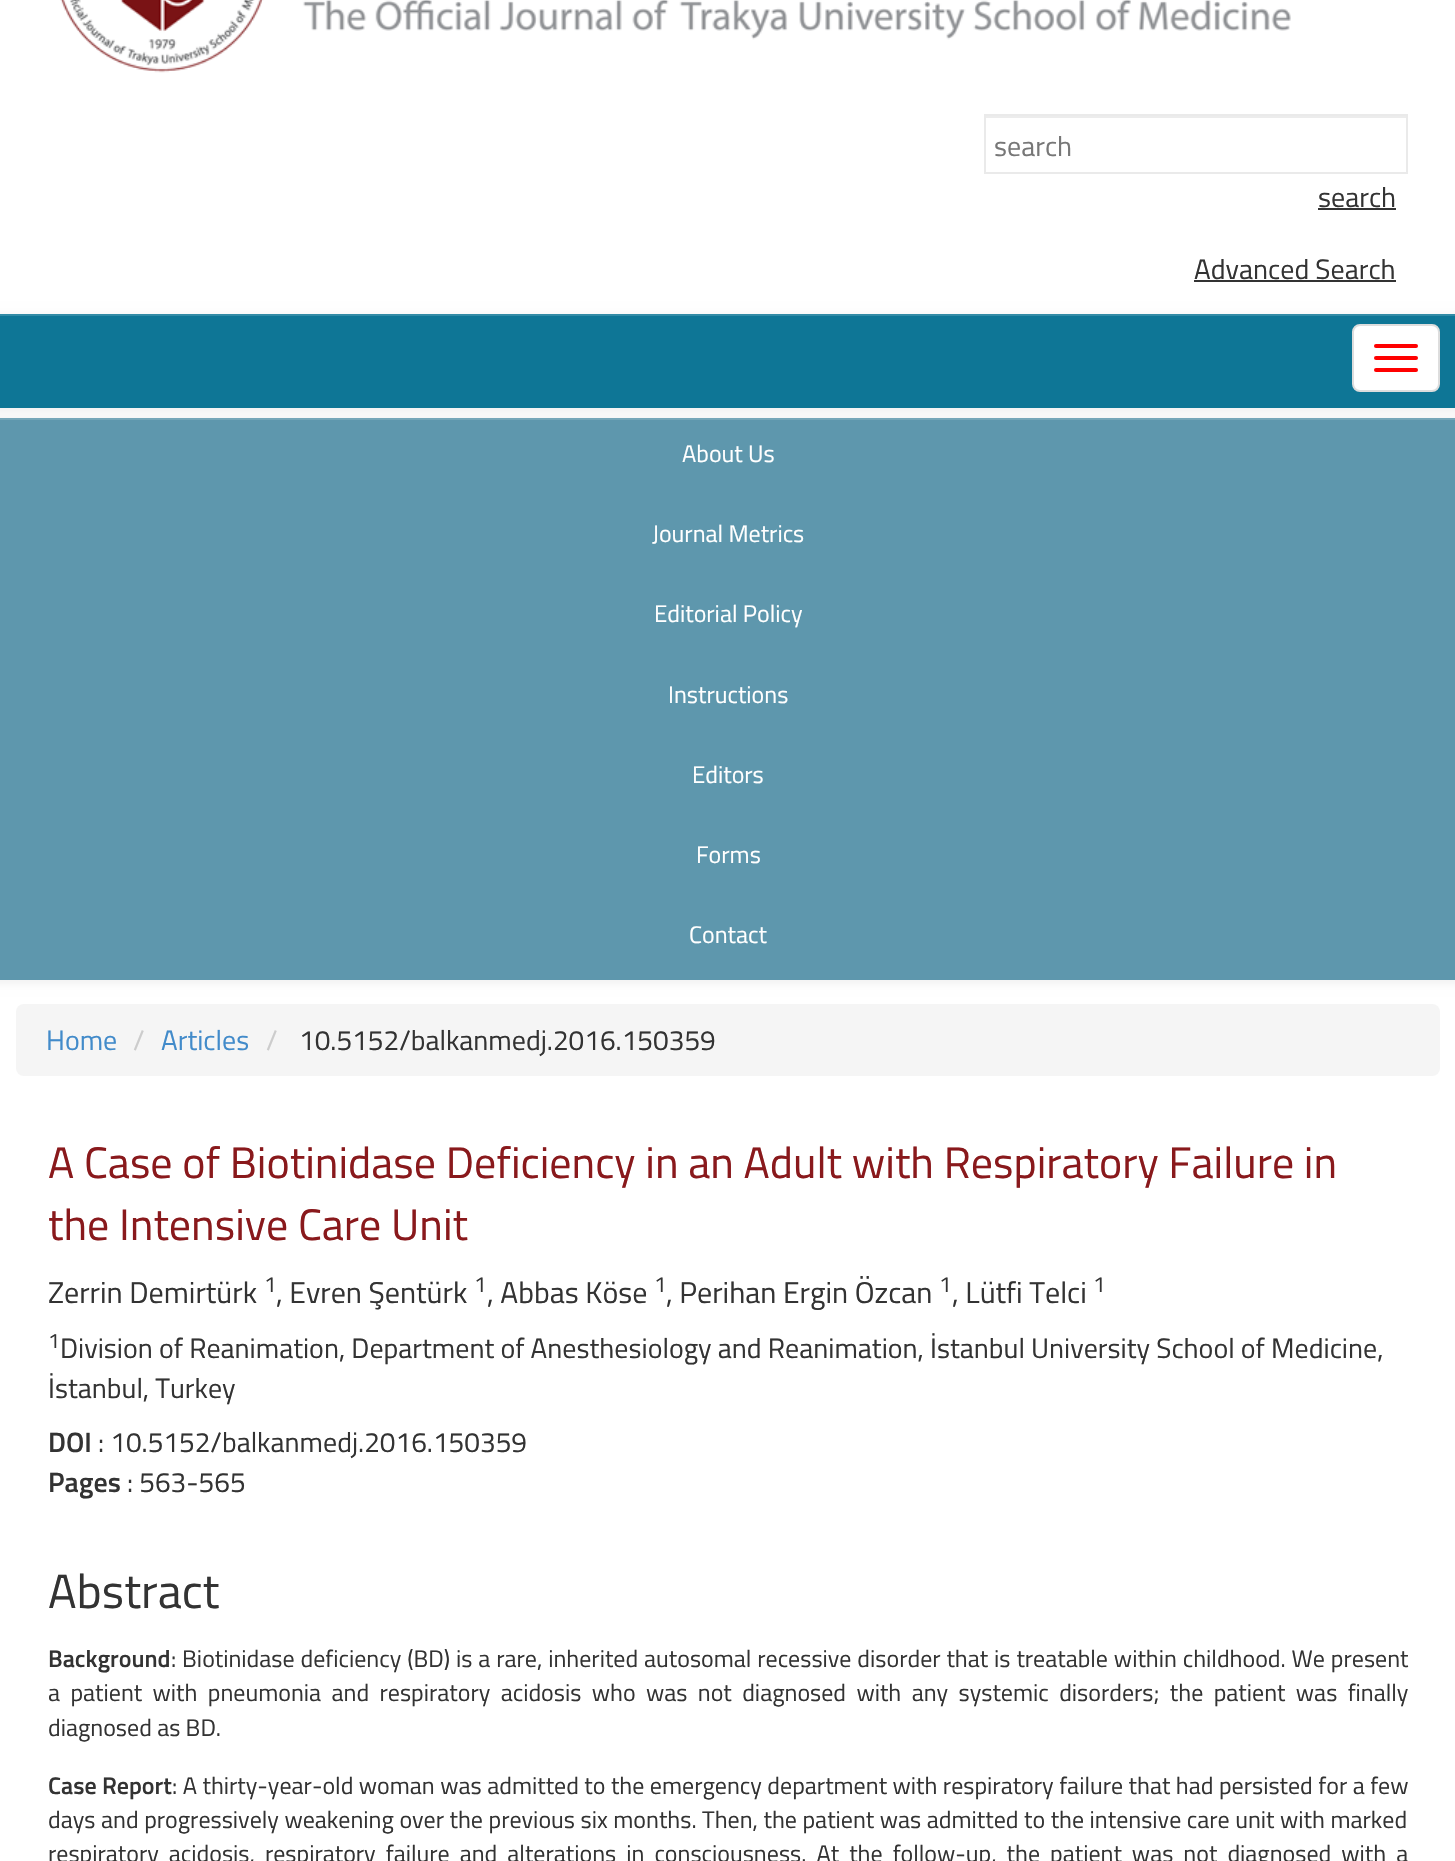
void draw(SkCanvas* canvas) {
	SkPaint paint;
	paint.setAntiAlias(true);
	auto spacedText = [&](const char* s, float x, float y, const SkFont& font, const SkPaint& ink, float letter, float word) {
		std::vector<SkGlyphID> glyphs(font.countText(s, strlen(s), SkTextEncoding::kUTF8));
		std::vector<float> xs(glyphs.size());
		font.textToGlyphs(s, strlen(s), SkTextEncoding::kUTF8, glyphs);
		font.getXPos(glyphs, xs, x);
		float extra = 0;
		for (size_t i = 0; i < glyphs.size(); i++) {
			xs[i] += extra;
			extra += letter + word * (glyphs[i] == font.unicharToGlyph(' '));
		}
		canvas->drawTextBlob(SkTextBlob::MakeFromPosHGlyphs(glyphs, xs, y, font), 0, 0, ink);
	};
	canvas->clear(0xffffffff);
	canvas->drawImageRect(SkImages::DeferredFromEncodedData(SkData::MakeFromFileName("img1.png")), SkRect::MakeXYWH(60, 0, 1231, 73), SkSamplingOptions());
	paint.setColor(0xffececec);
	canvas->drawRect(SkRect::MakeXYWH(986, 116, 420, 2), paint);
	paint.setStroke(true);
	paint.setStrokeWidth(2);
	paint.setColor(0xffeaeaea);
	canvas->drawRect(SkRect::MakeXYWH(985, 115, 422, 58), paint);
	SkFont f1(fontMgr->matchFamilyStyle("Titillium Web", SkFontStyle::Normal()), 28);
	f1.setSubpixel(true);
	paint.setStroke(false);
	paint.setColor(0xff777777);
	canvas->drawString("search", 994, 156, f1, paint);
	paint.setColor(0xff333333);
	canvas->drawString("search", 1318, 207, f1, paint);
	canvas->drawRect(SkRect::MakeXYWH(1318, 208, 78, 2), paint);
	canvas->drawString("Advanced Search", 1194, 279, f1, paint);
	canvas->drawRect(SkRect::MakeXYWH(1194, 280, 202, 2), paint);
	paint.setColor(0x12000000);
	paint.setMaskFilter(SkMaskFilter::MakeBlur(kNormal_SkBlurStyle, 5));
	canvas->drawRect(SkRect::MakeXYWH(-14, 316, 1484, 94), paint);
	paint.setMaskFilter(nullptr);
	paint.setColor(0xff0e7696);
	canvas->drawRect(SkRect::MakeXYWH(0, 316, 1455, 92), paint);
	paint.setColor(0xff328ba6);
	canvas->drawRect(SkRect::MakeXYWH(0, 314, 1455, 2), paint);
	paint.setColor(0xffffffff);
	canvas->drawRoundRect(SkRect::MakeXYWH(1353, 325, 86, 66), 7, 7, paint);
	paint.setStroke(true);
	paint.setColor(0xffdddddd);
	canvas->drawRoundRect(SkRect::MakeXYWH(1353, 325, 86, 66), 7, 7, paint);
	paint.setStroke(false);
	paint.setColor(0xffff0000);
	canvas->drawRoundRect(SkRect::MakeXYWH(1374, 344, 44, 4), 2, 2, paint);
	canvas->drawRoundRect(SkRect::MakeXYWH(1374, 356, 44, 4), 2, 2, paint);
	canvas->drawRoundRect(SkRect::MakeXYWH(1374, 368, 44, 4), 2, 2, paint);
	paint.setColor(0x12000000);
	paint.setMaskFilter(SkMaskFilter::MakeBlur(kNormal_SkBlurStyle, 5));
	canvas->drawRect(SkRect::MakeXYWH(-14, 420, 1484, 562), paint);
	paint.setMaskFilter(nullptr);
	paint.setColor(0xff5e97ad);
	canvas->drawRect(SkRect::MakeXYWH(0, 420, 1455, 560), paint);
	paint.setColor(0xff76a7b9);
	canvas->drawRect(SkRect::MakeXYWH(0, 418, 1455, 2), paint);
	SkFont f2(fontMgr->matchFamilyStyle("Titillium Web", SkFontStyle::Normal()), 24);
	f2.setSubpixel(true);
	paint.setColor(0xffffffff);
	canvas->drawString("About Us", 682, 462, f2, paint);
	canvas->drawString("Journal Metrics", 652, 542, f2, paint);
	canvas->drawString("Editorial Policy", 654, 622, f2, paint);
	canvas->drawString("Instructions", 668, 703, f2, paint);
	canvas->drawString("Editors", 692, 783, f2, paint);
	canvas->drawString("Forms", 696, 863, f2, paint);
	canvas->drawString("Contact", 689, 943, f2, paint);
	paint.setColor(0xfff5f5f5);
	canvas->drawRoundRect(SkRect::MakeXYWH(16, 1004, 1424, 72), 8, 8, paint);
	paint.setColor(0xff428bca);
	canvas->drawString("Home", 46, 1050, f1, paint);
	paint.setColor(0xffcccccc);
	canvas->drawString("/", 133, 1050, f1, paint);
	paint.setColor(0xff428bca);
	canvas->drawString("Articles", 161, 1050, f1, paint);
	paint.setColor(0xffcccccc);
	canvas->drawString("/", 266, 1050, f1, paint);
	paint.setColor(0xff333333);
	canvas->drawString("10.5152/balkanmedj.2016.150359", 299, 1050, f1, paint);
	SkFont f3(fontMgr->matchFamilyStyle("Titillium Web", SkFontStyle::Normal()), 44);
	f3.setSubpixel(true);
	paint.setColor(0xff89191c);
	canvas->drawString("A Case of Biotinidase Deficiency in an Adult with Respiratory Failure in", 48, 1178, f3, paint);
	canvas->drawString("the Intensive Care Unit", 48, 1240, f3, paint);
	SkFont f4(fontMgr->matchFamilyStyle("Titillium Web", SkFontStyle::Normal()), 30);
	f4.setSubpixel(true);
	paint.setColor(0xff333333);
	canvas->drawString("Zerrin Demirtürk", 48, 1303, f4, paint);
	SkFont f5(fontMgr->matchFamilyStyle("Titillium Web", SkFontStyle::Normal()), 22);
	f5.setSubpixel(true);
	canvas->drawString("1", 264, 1292, f5, paint);
	canvas->drawString(", Evren Şentürk", 276, 1303, f4, paint);
	canvas->drawString("1", 474, 1292, f5, paint);
	canvas->drawString(", Abbas Köse", 487, 1303, f4, paint);
	canvas->drawString("1", 654, 1292, f5, paint);
	canvas->drawString(", Perihan Ergin Özcan", 666, 1303, f4, paint);
	canvas->drawString("1", 939, 1292, f5, paint);
	canvas->drawString(", Lütfi Telci", 952, 1303, f4, paint);
	canvas->drawString("1", 1093, 1292, f5, paint);
	SkFont f6(fontMgr->matchFamilyStyle("Titillium Web", SkFontStyle::Normal()), 21);
	f6.setSubpixel(true);
	canvas->drawString("1", 48, 1348, f6, paint);
	canvas->drawString("Division of Reanimation, Department of Anesthesiology and Reanimation, İstanbul University School of Medicine,", 60, 1358, f1, paint);
	canvas->drawString("İstanbul, Turkey", 48, 1398, f1, paint);
	SkFont f7(fontMgr->matchFamilyStyle("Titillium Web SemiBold", SkFontStyle(600, SkFontStyle::kNormal_Width, SkFontStyle::kUpright_Slant)), 28);
	f7.setSubpixel(true);
	canvas->drawString("DOI", 48, 1452, f7, paint);
	canvas->drawString(": 10.5152/balkanmedj.2016.150359", 98, 1452, f1, paint);
	canvas->drawString("Pages", 48, 1492, f7, paint);
	canvas->drawString(": 563-565", 127, 1492, f1, paint);
	SkFont f8(fontMgr->matchFamilyStyle("Titillium Web", SkFontStyle::Normal()), 48);
	f8.setSubpixel(true);
	canvas->drawString("Abstract", 48, 1608, f8, paint);
	SkFont f9(fontMgr->matchFamilyStyle("Titillium Web SemiBold", SkFontStyle(600, SkFontStyle::kNormal_Width, SkFontStyle::kUpright_Slant)), 24);
	f9.setSubpixel(true);
	canvas->drawString("Background", 48, 1667, f9, paint);
	spacedText(": Biotinidase deficiency (BD) is a rare, inherited autosomal recessive disorder that is treatable within childhood. We present", 171, 1667, f2, paint, 0, 0.6);
	spacedText("a patient with pneumonia and respiratory acidosis who was not diagnosed with any systemic disorders; the patient was finally", 48, 1701, f2, paint, 0, 5.1);
	canvas->drawString("diagnosed as BD.", 48, 1736, f2, paint);
	canvas->drawString("Case Report", 48, 1794, f9, paint);
	spacedText(": A thirty-year-old woman was admitted to the emergency department with respiratory failure that had persisted for a few", 172, 1794, f2, paint, 0, 0.2);
	spacedText("days and progressively weakening over the previous six months. Then, the patient was admitted to the intensive care unit with marked", 48, 1828, f2, paint, 0, 0.25);
	spacedText("respiratory acidosis, respiratory failure and alterations in consciousness. At the follow-up, the patient was not diagnosed with a", 48, 1862, f2, paint, 0, 4.75);
}
